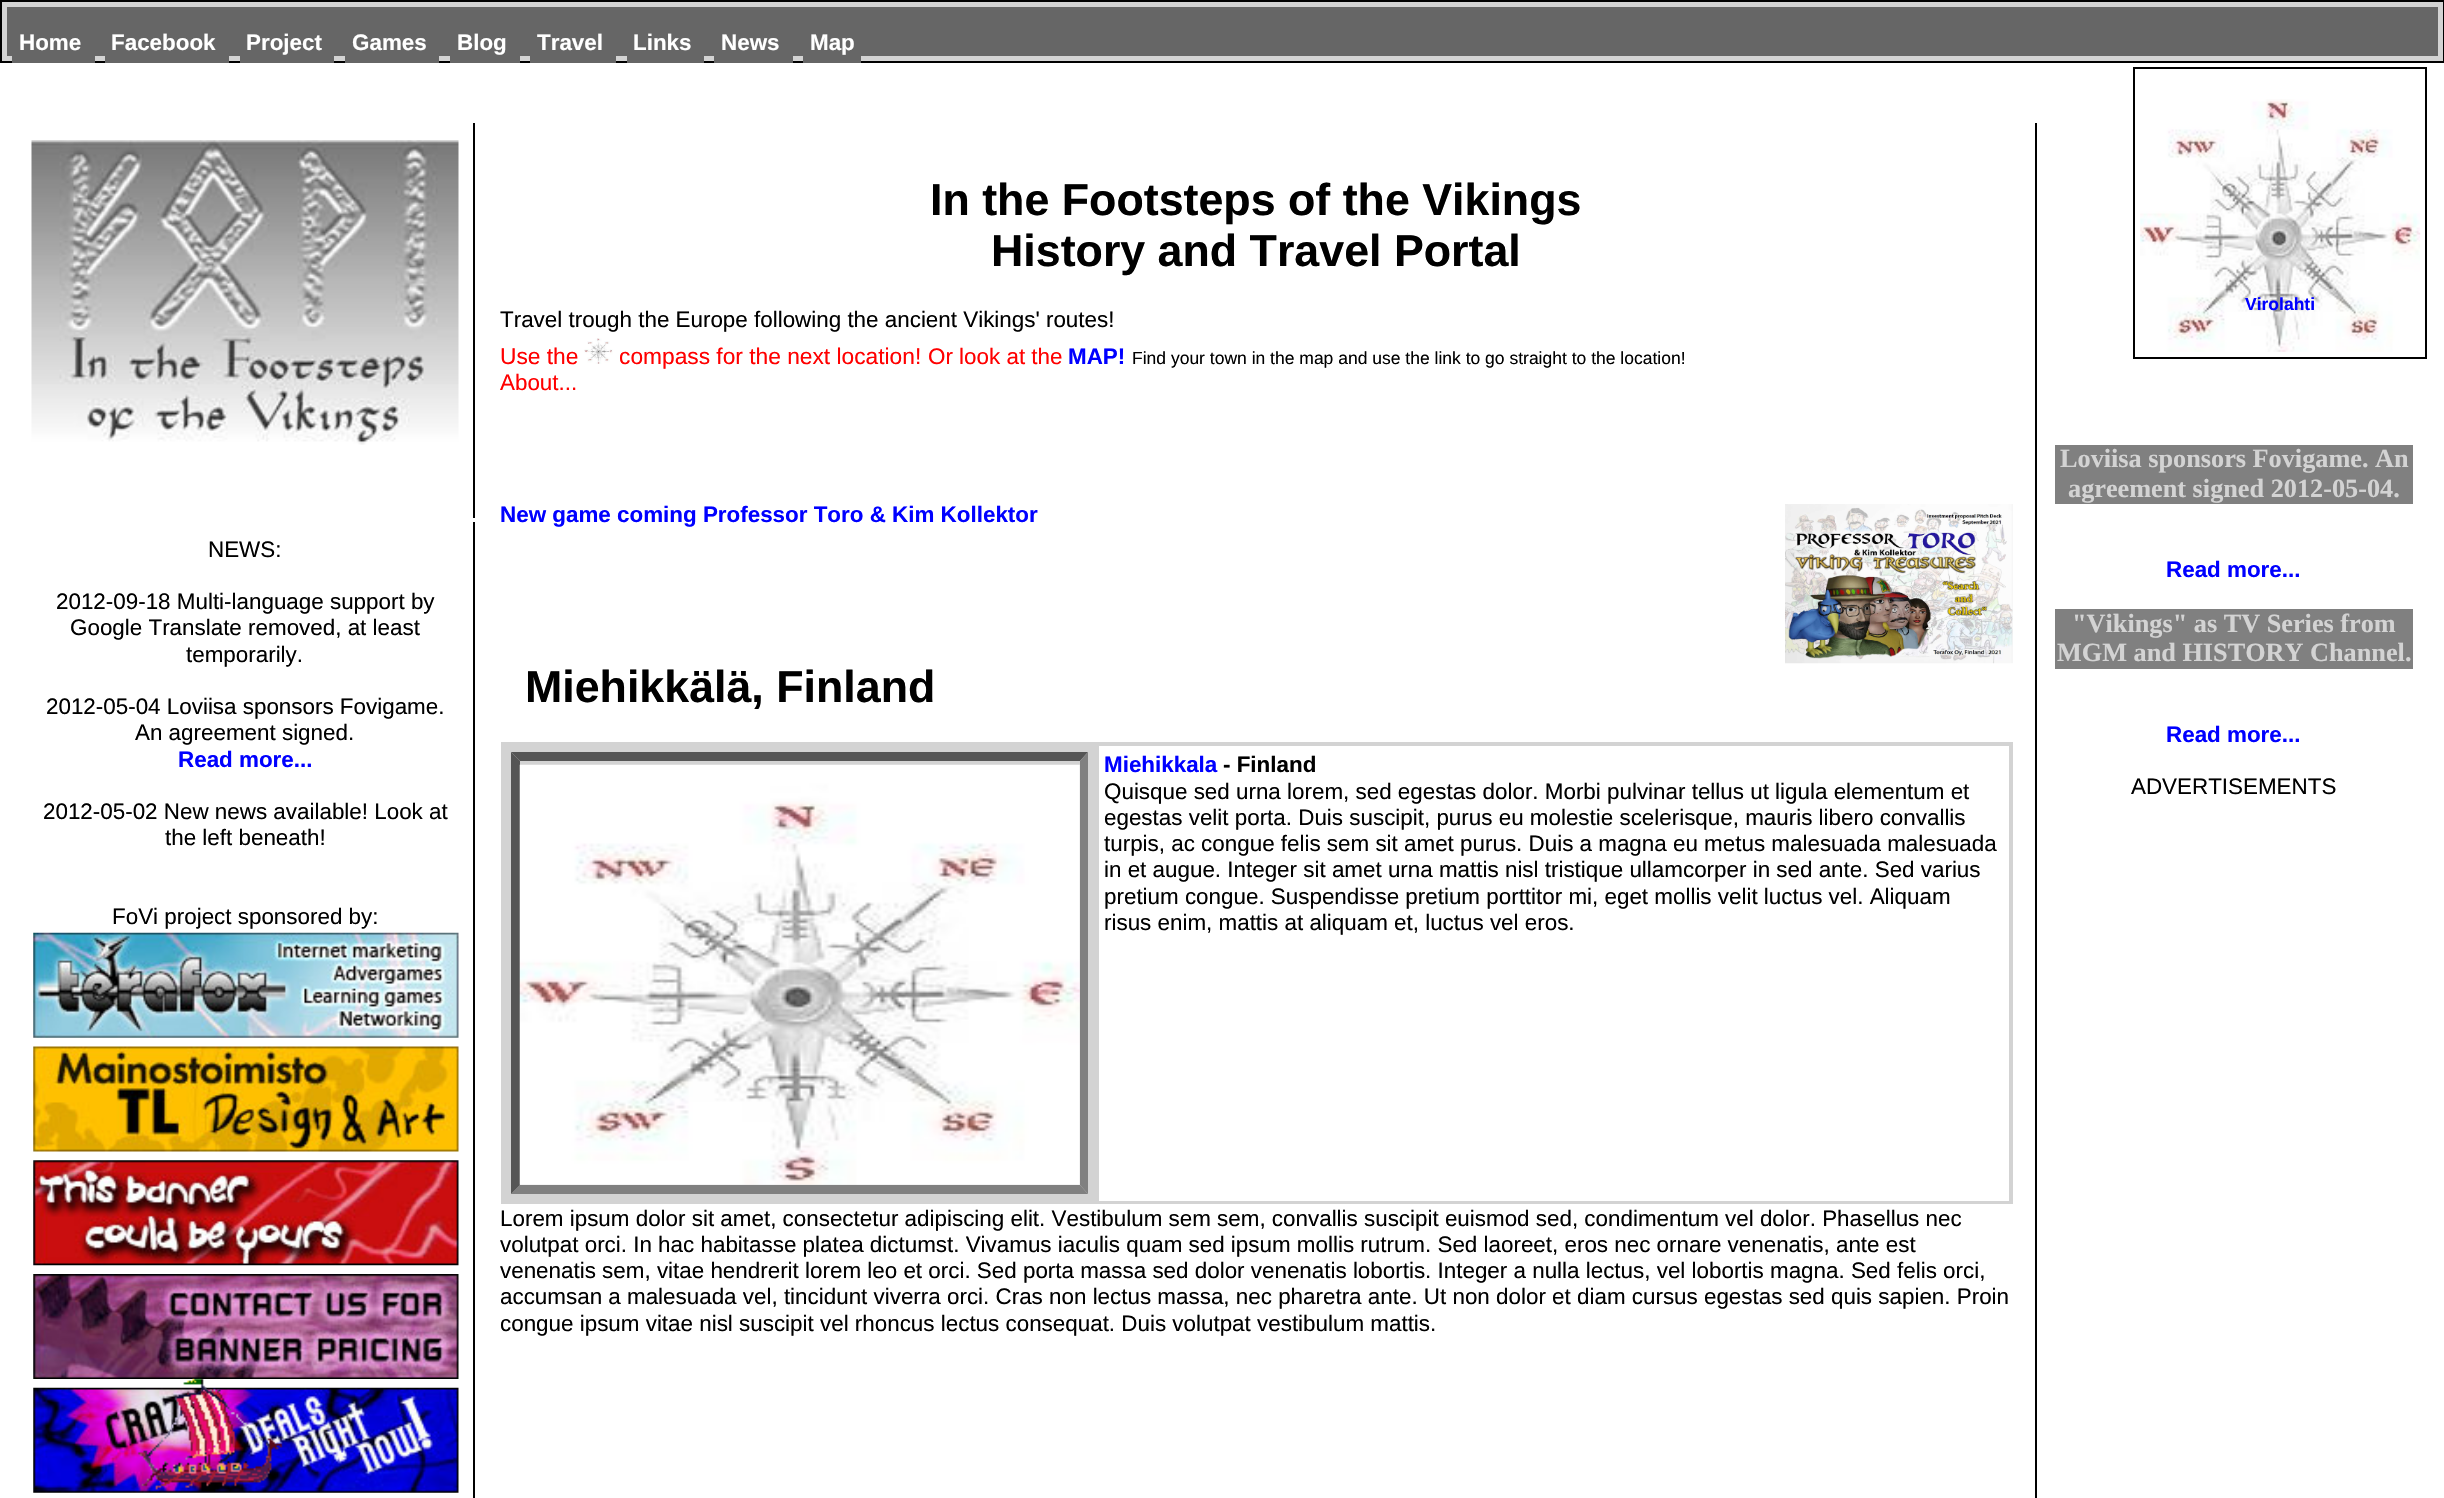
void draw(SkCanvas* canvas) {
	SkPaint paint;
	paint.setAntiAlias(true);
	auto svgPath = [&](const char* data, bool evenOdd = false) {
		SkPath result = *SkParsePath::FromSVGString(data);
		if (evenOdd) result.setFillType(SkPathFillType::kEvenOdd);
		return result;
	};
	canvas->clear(0xffffffff);
	paint.setColor(0xff000000);
	canvas->drawRect(SkRect::MakeXYWH(2035, 123, 2, 1375), paint);
	paint.setColor(0xffd3d3d3);
	canvas->drawRect(SkRect::MakeXYWH(1, 1, 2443, 61), paint);
	paint.setStroke(true);
	paint.setStrokeWidth(2);
	paint.setColor(0xff000000);
	canvas->drawRect(SkRect::MakeXYWH(1, 1, 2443, 61), paint);
	paint.setStroke(false);
	paint.setColor(0xff666666);
	canvas->drawRect(SkRect::MakeXYWH(7, 7, 2431, 49), paint);
	SkFont f1(fontMgr->matchFamilyStyle("Liberation Sans", SkFontStyle::Bold()), 22.4);
	f1.setSubpixel(true);
	paint.setColor(0xffffffff);
	canvas->drawString("Home", 19, 50, f1, paint);
	paint.setColor(0xff666666);
	canvas->drawRect(SkRect::MakeXYWH(12, 56, 83, 7), paint);
	paint.setColor(0xffffffff);
	canvas->drawString("Facebook", 111, 50, f1, paint);
	paint.setColor(0xff666666);
	canvas->drawRect(SkRect::MakeXYWH(105, 56, 124, 7), paint);
	paint.setColor(0xffffffff);
	canvas->drawString("Project", 246, 50, f1, paint);
	paint.setColor(0xff666666);
	canvas->drawRect(SkRect::MakeXYWH(240, 56, 94, 7), paint);
	paint.setColor(0xffffffff);
	canvas->drawString("Games", 352, 50, f1, paint);
	paint.setColor(0xff666666);
	canvas->drawRect(SkRect::MakeXYWH(345, 56, 94, 7), paint);
	paint.setColor(0xffffffff);
	canvas->drawString("Blog", 457, 50, f1, paint);
	paint.setColor(0xff666666);
	canvas->drawRect(SkRect::MakeXYWH(450, 56, 70, 7), paint);
	paint.setColor(0xffffffff);
	canvas->drawString("Travel", 537, 50, f1, paint);
	paint.setColor(0xff666666);
	canvas->drawRect(SkRect::MakeXYWH(530, 56, 86, 7), paint);
	paint.setColor(0xffffffff);
	canvas->drawString("Links", 633, 50, f1, paint);
	paint.setColor(0xff666666);
	canvas->drawRect(SkRect::MakeXYWH(627, 56, 77, 7), paint);
	paint.setColor(0xffffffff);
	canvas->drawString("News", 721, 50, f1, paint);
	paint.setColor(0xff666666);
	canvas->drawRect(SkRect::MakeXYWH(714, 56, 79, 7), paint);
	paint.setColor(0xffffffff);
	canvas->drawString("Map", 810, 50, f1, paint);
	paint.setColor(0xff666666);
	canvas->drawRect(SkRect::MakeXYWH(803, 56, 58, 7), paint);
	SkFont f2(fontMgr->matchFamilyStyle("Liberation Sans", SkFontStyle::Bold()), 44.75);
	f2.setSubpixel(true);
	paint.setColor(0xff000000);
	canvas->drawString("In the Footsteps of the Vikings", 930, 215, f2, paint);
	canvas->drawString("History and Travel Portal", 991, 266, f2, paint);
	SkFont f3(fontMgr->matchFamilyStyle("Liberation Sans", SkFontStyle::Normal()), 22.4);
	f3.setSubpixel(true);
	canvas->drawString("Travel trough the Europe following the ancient Vikings' routes!", 500, 327, f3, paint);
	SkFont f4(fontMgr->matchFamilyStyle("Liberation Sans", SkFontStyle::Normal()), 22.75);
	f4.setSubpixel(true);
	paint.setColor(0xffff0000);
	canvas->drawString("Use the", 500, 364, f4, paint);
	canvas->drawImageRect(SkImages::DeferredFromEncodedData(SkData::MakeFromFileName("img1.png")), SkRect::MakeXYWH(584, 338, 29, 26), SkSamplingOptions());
	canvas->drawString("compass for the next location!", 619, 364, f4, paint);
	canvas->drawString("Or look at the", 928, 364, f3, paint);
	paint.setColor(0xff0000ff);
	canvas->drawString("MAP!", 1068, 364, f1, paint);
	SkFont f5(fontMgr->matchFamilyStyle("Liberation Sans", SkFontStyle::Normal()), 17.5);
	f5.setSubpixel(true);
	paint.setColor(0xff000000);
	canvas->drawString("Find your town in the map and use the link to go straight to the location!", 1132, 364, f5, paint);
	paint.setColor(0xffff0000);
	canvas->drawString("About...", 500, 390, f3, paint);
	paint.setColor(0xff0000ff);
	canvas->drawString("New game coming Professor Toro & Kim Kollektor", 500, 522, f1, paint);
	canvas->drawImageRect(SkImages::DeferredFromEncodedData(SkData::MakeFromFileName("img2.png")), SkRect::MakeXYWH(1785, 504, 228, 160), SkSamplingOptions());
	paint.setColor(0xff000000);
	canvas->drawString("Miehikkälä, Finland", 525, 702, f2, paint);
	paint.setColor(0xffd3d3d3);
	canvas->drawRect(SkRect::MakeXYWH(501, 742, 1512, 462), paint);
	paint.setColor(0xff555555);
	canvas->drawPath(svgPath("M511 752H1088L1080 761H520Z"), paint);
	paint.setColor(0xff808080);
	canvas->drawPath(svgPath("M1088 752V1194L1080 1185V761Z"), paint);
	canvas->drawPath(svgPath("M1088 1194H511L520 1185H1080Z"), paint);
	paint.setColor(0xff555555);
	canvas->drawPath(svgPath("M511 1194V752L520 761V1185Z"), paint);
	canvas->drawImageRect(SkImages::DeferredFromEncodedData(SkData::MakeFromFileName("img3.png")), SkRect::MakeXYWH(519, 764, 561, 421), SkSamplingOptions());
	paint.setColor(0xffffffff);
	canvas->drawRect(SkRect::MakeXYWH(1099, 746, 910, 455), paint);
	paint.setColor(0xff0000ff);
	canvas->drawString("Miehikkala", 1104, 772, f1, paint);
	paint.setColor(0xff000000);
	canvas->drawString("- Finland", 1223, 772, f1, paint);
	canvas->drawString("Quisque sed urna lorem, sed egestas dolor. Morbi pulvinar tellus ut ligula elementum et", 1104, 799, f3, paint);
	canvas->drawString("egestas velit porta. Duis suscipit, purus eu molestie scelerisque, mauris libero convallis", 1104, 825, f3, paint);
	canvas->drawString("turpis, ac congue felis sem sit amet purus. Duis a magna eu metus malesuada malesuada", 1104, 851, f3, paint);
	canvas->drawString("in et augue. Integer sit amet urna mattis nisl tristique ullamcorper in sed ante. Sed varius", 1104, 877, f3, paint);
	canvas->drawString("pretium congue. Suspendisse pretium porttitor mi, eget mollis velit luctus vel. Aliquam", 1104, 904, f3, paint);
	canvas->drawString("risus enim, mattis at aliquam et, luctus vel eros.", 1104, 930, f3, paint);
	canvas->drawString("Lorem ipsum dolor sit amet, consectetur adipiscing elit. Vestibulum sem sem, convallis suscipit euismod sed, condimentum vel dolor. Phasellus nec", 500, 1226, f3, paint);
	canvas->drawString("volutpat orci. In hac habitasse platea dictumst. Vivamus iaculis quam sed ipsum mollis rutrum. Sed laoreet, eros nec ornare venenatis, ante est", 500, 1252, f3, paint);
	canvas->drawString("venenatis sem, vitae hendrerit lorem leo et orci. Sed porta massa sed dolor venenatis lobortis. Integer a nulla lectus, vel lobortis magna. Sed felis orci,", 500, 1278, f3, paint);
	canvas->drawString("accumsan a malesuada vel, tincidunt viverra orci. Cras non lectus massa, nec pharetra ante. Ut non dolor et diam cursus egestas sed quis sapien. Proin", 500, 1304, f3, paint);
	canvas->drawString("congue ipsum vitae nisl suscipit vel rhoncus lectus consequat. Duis volutpat vestibulum mattis.", 500, 1331, f3, paint);
	canvas->drawRect(SkRect::MakeXYWH(473, 123, 2, 395), paint);
	canvas->drawImageRect(SkImages::DeferredFromEncodedData(SkData::MakeFromFileName("img4.png")), SkRect::MakeXYWH(31, 140, 428, 305), SkSamplingOptions());
	paint.setColor(0xff808080);
	canvas->drawRect(SkRect::MakeXYWH(2055, 445, 358, 59), paint);
	SkFont f6(fontMgr->matchFamilyStyle("Liberation Serif", SkFontStyle::Bold()), 26.25);
	f6.setSubpixel(true);
	paint.setColor(0xffd3d3d3);
	canvas->drawString("Loviisa sponsors Fovigame. An", 2060, 467, f6, paint);
	canvas->drawString("agreement signed 2012-05-04.", 2068, 497, f6, paint);
	paint.setColor(0xff0000ff);
	canvas->drawString("Read more...", 2166, 577, f1, paint);
	paint.setColor(0xff808080);
	canvas->drawRect(SkRect::MakeXYWH(2055, 609, 358, 60), paint);
	paint.setColor(0xffd3d3d3);
	canvas->drawString("\"Vikings\" as TV Series from", 2072, 632, f6, paint);
	canvas->drawString("MGM and HISTORY Channel.", 2057, 661, f6, paint);
	paint.setColor(0xff0000ff);
	canvas->drawString("Read more...", 2166, 742, f1, paint);
	paint.setColor(0xff000000);
	canvas->drawString("ADVERTISEMENTS", 2131, 794, f3, paint);
	canvas->drawRect(SkRect::MakeXYWH(473, 522, 2, 976), paint);
	canvas->drawString("NEWS:", 208, 557, f3, paint);
	canvas->drawString("2012-09-18 Multi-language support by", 56, 609, f3, paint);
	canvas->drawString("Google Translate removed, at least", 70, 635, f3, paint);
	canvas->drawString("temporarily.", 186, 662, f3, paint);
	canvas->drawString("2012-05-04 Loviisa sponsors Fovigame.", 46, 714, f3, paint);
	canvas->drawString("An agreement signed.", 135, 740, f3, paint);
	paint.setColor(0xff0000ff);
	canvas->drawString("Read more...", 178, 767, f1, paint);
	paint.setColor(0xff000000);
	canvas->drawString("2012-05-02 New news available! Look at", 43, 819, f3, paint);
	canvas->drawString("the left beneath!", 165, 845, f3, paint);
	canvas->drawString("FoVi project sponsored by:", 112, 924, f3, paint);
	canvas->drawImageRect(SkImages::DeferredFromEncodedData(SkData::MakeFromFileName("img5.png")), SkRect::MakeXYWH(33, 932, 426, 106), SkSamplingOptions());
	canvas->drawImageRect(SkImages::DeferredFromEncodedData(SkData::MakeFromFileName("img6.png")), SkRect::MakeXYWH(33, 1046, 426, 106), SkSamplingOptions());
	canvas->drawImageRect(SkImages::DeferredFromEncodedData(SkData::MakeFromFileName("img7.png")), SkRect::MakeXYWH(33, 1160, 426, 106), SkSamplingOptions());
	canvas->drawImageRect(SkImages::DeferredFromEncodedData(SkData::MakeFromFileName("img8.png")), SkRect::MakeXYWH(33, 1274, 426, 105), SkSamplingOptions());
	canvas->drawImageRect(SkImages::DeferredFromEncodedData(SkData::MakeFromFileName("img9.png")), SkRect::MakeXYWH(33, 1387, 426, 106), SkSamplingOptions());
	paint.setStroke(true);
	canvas->drawRect(SkRect::MakeXYWH(2134, 68, 292, 290), paint);
	canvas->drawImageRect(SkImages::DeferredFromEncodedData(SkData::MakeFromFileName("img10.png")), SkRect::MakeXYWH(2140, 99, 281, 253), SkSamplingOptions());
	SkFont f7(fontMgr->matchFamilyStyle("Liberation Sans", SkFontStyle::Bold()), 17.5);
	f7.setSubpixel(true);
	paint.setStroke(false);
	paint.setColor(0xff0000ff);
	canvas->drawString("Virolahti", 2245, 310, f7, paint);
	canvas->drawImageRect(SkImages::DeferredFromEncodedData(SkData::MakeFromFileName("img11.png")), SkRect::MakeXYWH(137, 1378, 146, 112), SkSamplingOptions());
}
